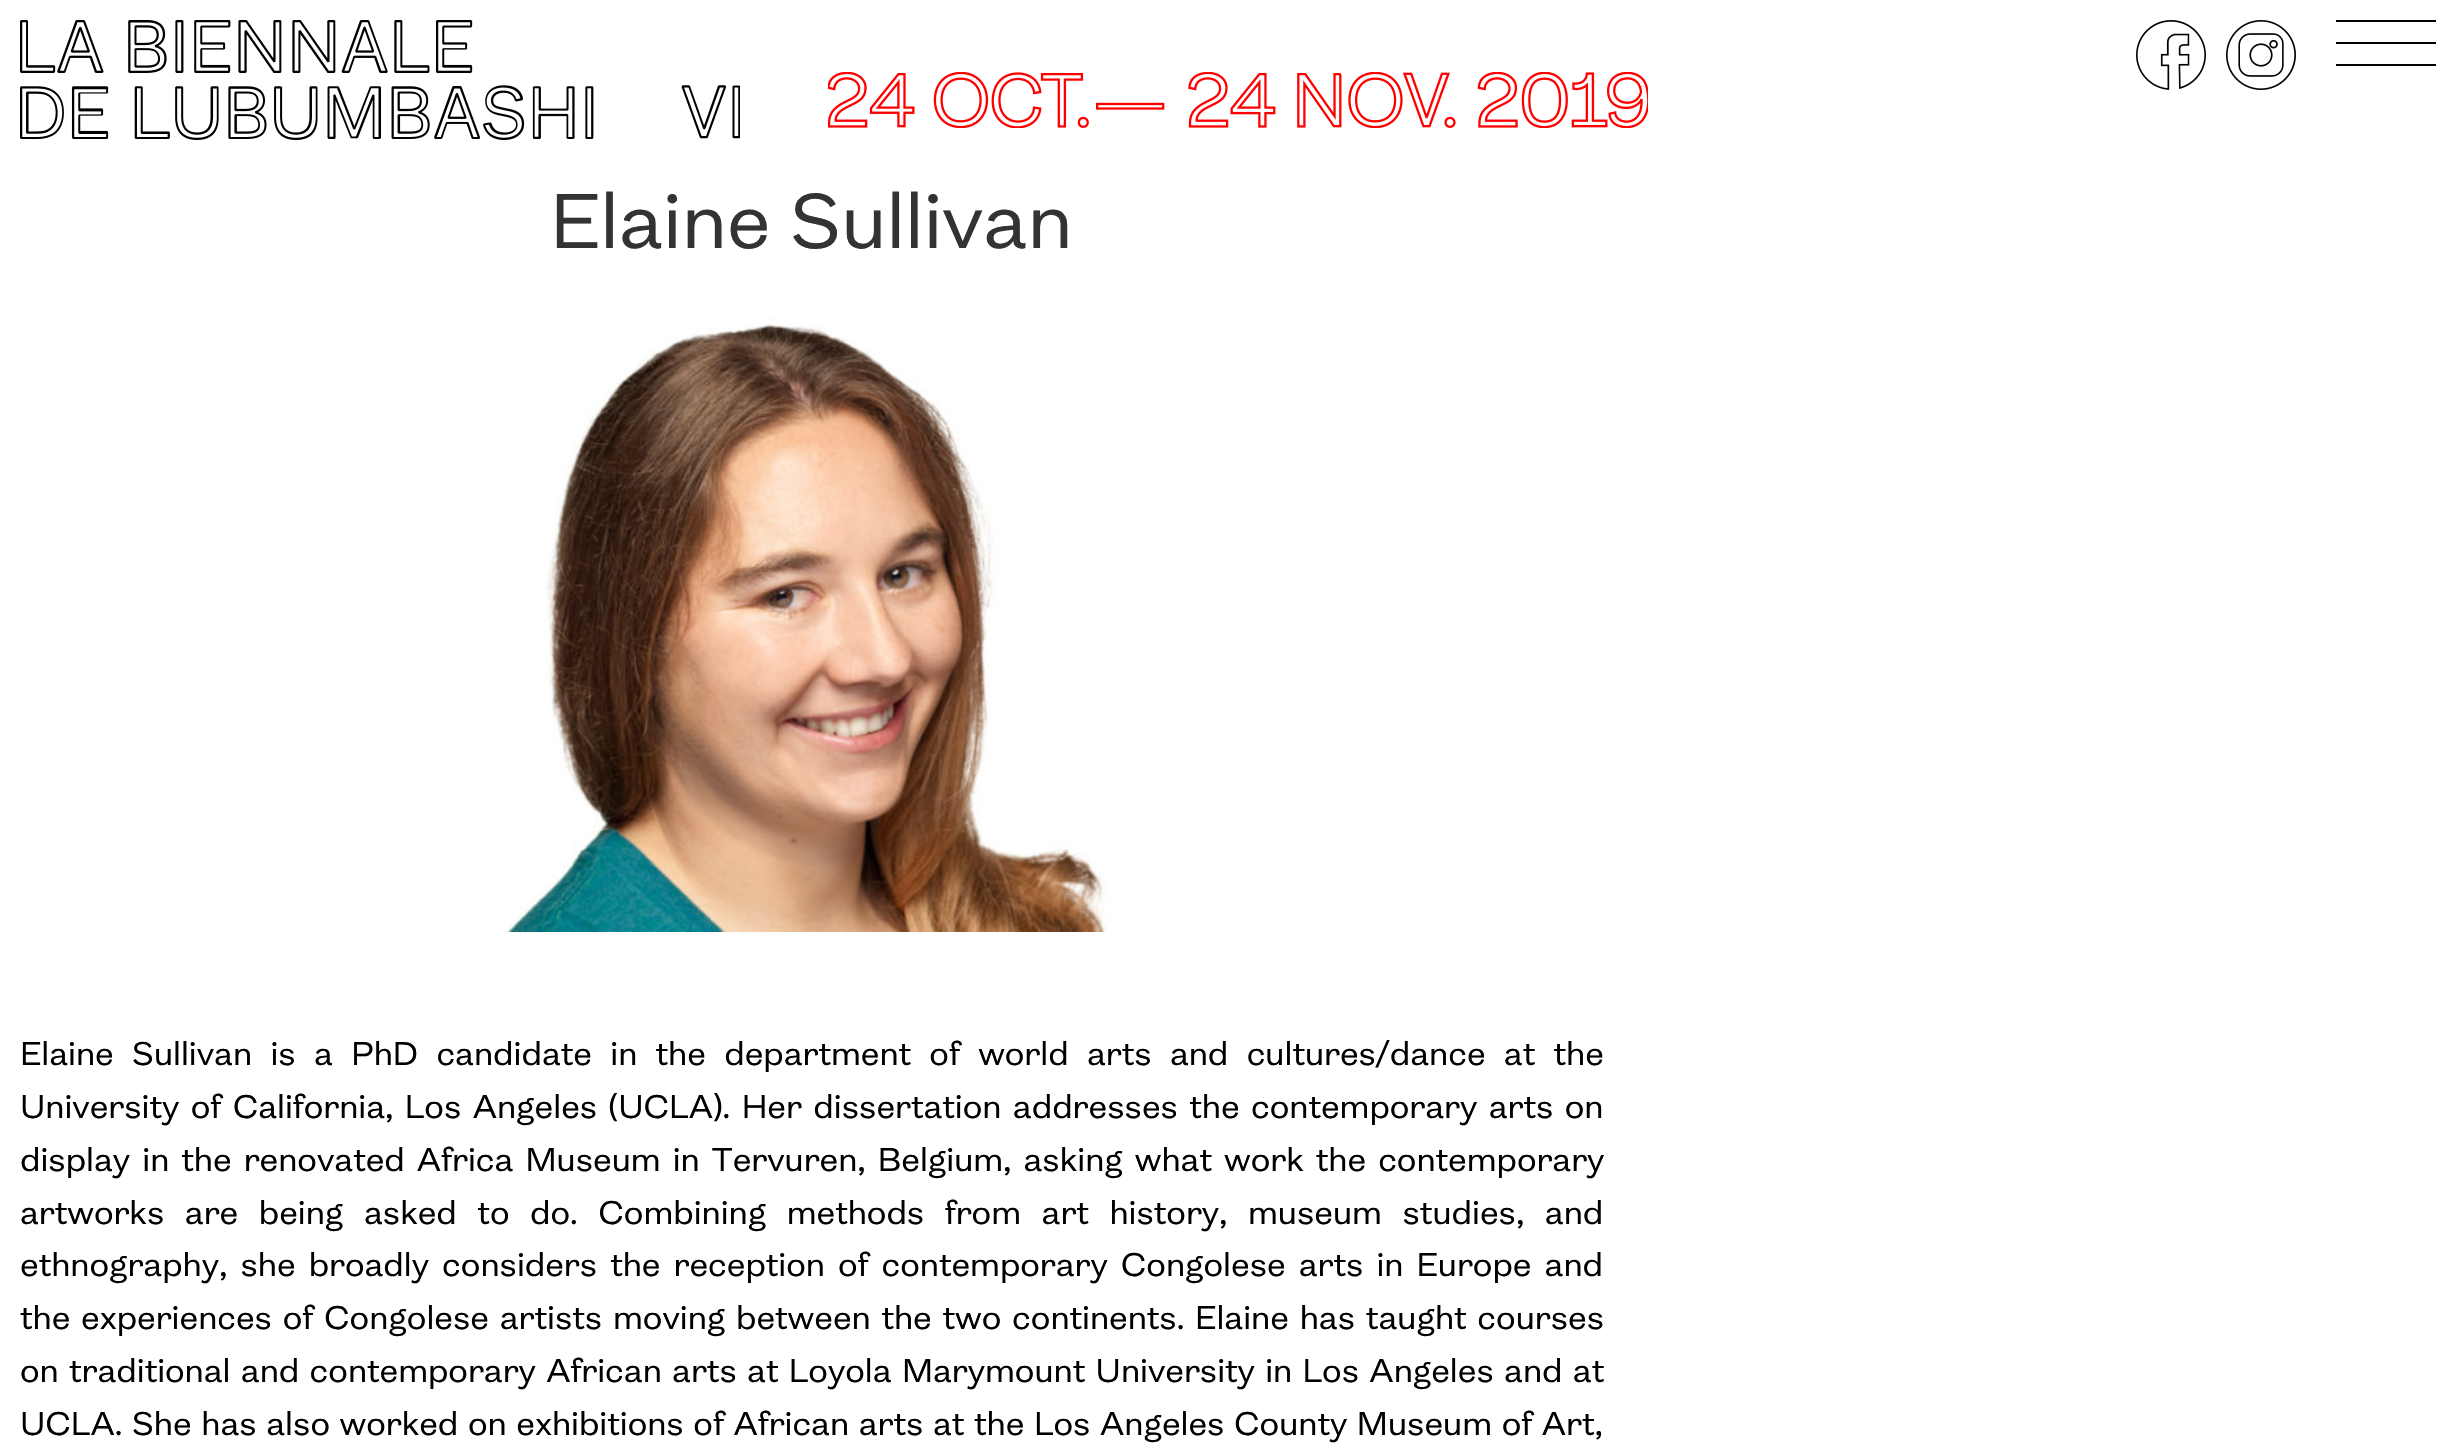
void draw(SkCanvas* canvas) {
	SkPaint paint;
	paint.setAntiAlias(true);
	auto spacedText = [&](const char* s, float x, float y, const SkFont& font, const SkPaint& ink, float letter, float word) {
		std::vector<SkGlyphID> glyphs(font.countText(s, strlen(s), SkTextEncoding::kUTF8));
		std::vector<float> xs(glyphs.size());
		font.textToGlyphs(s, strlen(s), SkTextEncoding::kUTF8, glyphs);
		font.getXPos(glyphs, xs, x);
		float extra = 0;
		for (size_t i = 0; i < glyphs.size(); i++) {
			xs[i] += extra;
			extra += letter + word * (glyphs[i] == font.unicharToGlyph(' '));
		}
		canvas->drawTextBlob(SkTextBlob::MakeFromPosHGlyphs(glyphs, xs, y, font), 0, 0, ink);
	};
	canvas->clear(0xffffffff);
	canvas->drawImageRect(SkImages::DeferredFromEncodedData(SkData::MakeFromFileName("img1.png")), SkRect::MakeXYWH(20, 20, 720, 120), SkSamplingOptions());
	canvas->drawImageRect(SkImages::DeferredFromEncodedData(SkData::MakeFromFileName("img2.png")), SkRect::MakeXYWH(2136, 20, 70, 70), SkSamplingOptions());
	canvas->drawImageRect(SkImages::DeferredFromEncodedData(SkData::MakeFromFileName("img3.png")), SkRect::MakeXYWH(2226, 20, 70, 70), SkSamplingOptions());
	canvas->drawImageRect(SkImages::DeferredFromEncodedData(SkData::MakeFromFileName("img4.png")), SkRect::MakeXYWH(828, 72, 820, 56), SkSamplingOptions());
	paint.setColor(0xff000000);
	canvas->drawRect(SkRect::MakeXYWH(2336, 20, 100, 2), paint);
	canvas->drawRect(SkRect::MakeXYWH(2336, 42, 100, 2), paint);
	canvas->drawRect(SkRect::MakeXYWH(2336, 64, 100, 2), paint);
	SkFont f1(fontMgr->matchFamilyStyle("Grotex", SkFontStyle::Normal()), 80);
	f1.setSubpixel(true);
	paint.setColor(0xff333333);
	canvas->drawString("Elaine Sullivan", 550, 248, f1, paint);
	canvas->drawImageRect(SkImages::DeferredFromEncodedData(SkData::MakeFromFileName("img5.png")), SkRect::MakeXYWH(352, 316, 918, 616), SkSamplingOptions());
	SkFont f2(fontMgr->matchFamilyStyle("Grotex", SkFontStyle::Normal()), 34);
	f2.setSubpixel(true);
	paint.setColor(0xff000000);
	spacedText("Elaine Sullivan is a PhD candidate in the department of world arts and cultures/dance at the", 20, 1065, f2, paint, 0, 10);
	spacedText("University of California, Los Angeles (UCLA). Her dissertation addresses the contemporary arts on", 20, 1118, f2, paint, 0, 3.1);
	spacedText("display in the renovated Africa Museum in Tervuren, Belgium, asking what work the contemporary", 20, 1171, f2, paint, 0, 3.75);
	spacedText("artworks are being asked to do. Combining methods from art history, museum studies, and", 20, 1224, f2, paint, 0, 12.25);
	spacedText("ethnography, she broadly considers the reception of contemporary Congolese arts in Europe and", 20, 1276, f2, paint, 0, 4.75);
	spacedText("the experiences of Congolese artists moving between the two continents. Elaine has taught courses", 20, 1329, f2, paint, 0, 2.5);
	spacedText("on traditional and contemporary African arts at Loyola Marymount University in Los Angeles and at", 20, 1382, f2, paint, 0, 2);
	spacedText("UCLA. She has also worked on exhibitions of African arts at the Los Angeles County Museum of Art,", 20, 1435, f2, paint, 0, 1.3);
}
